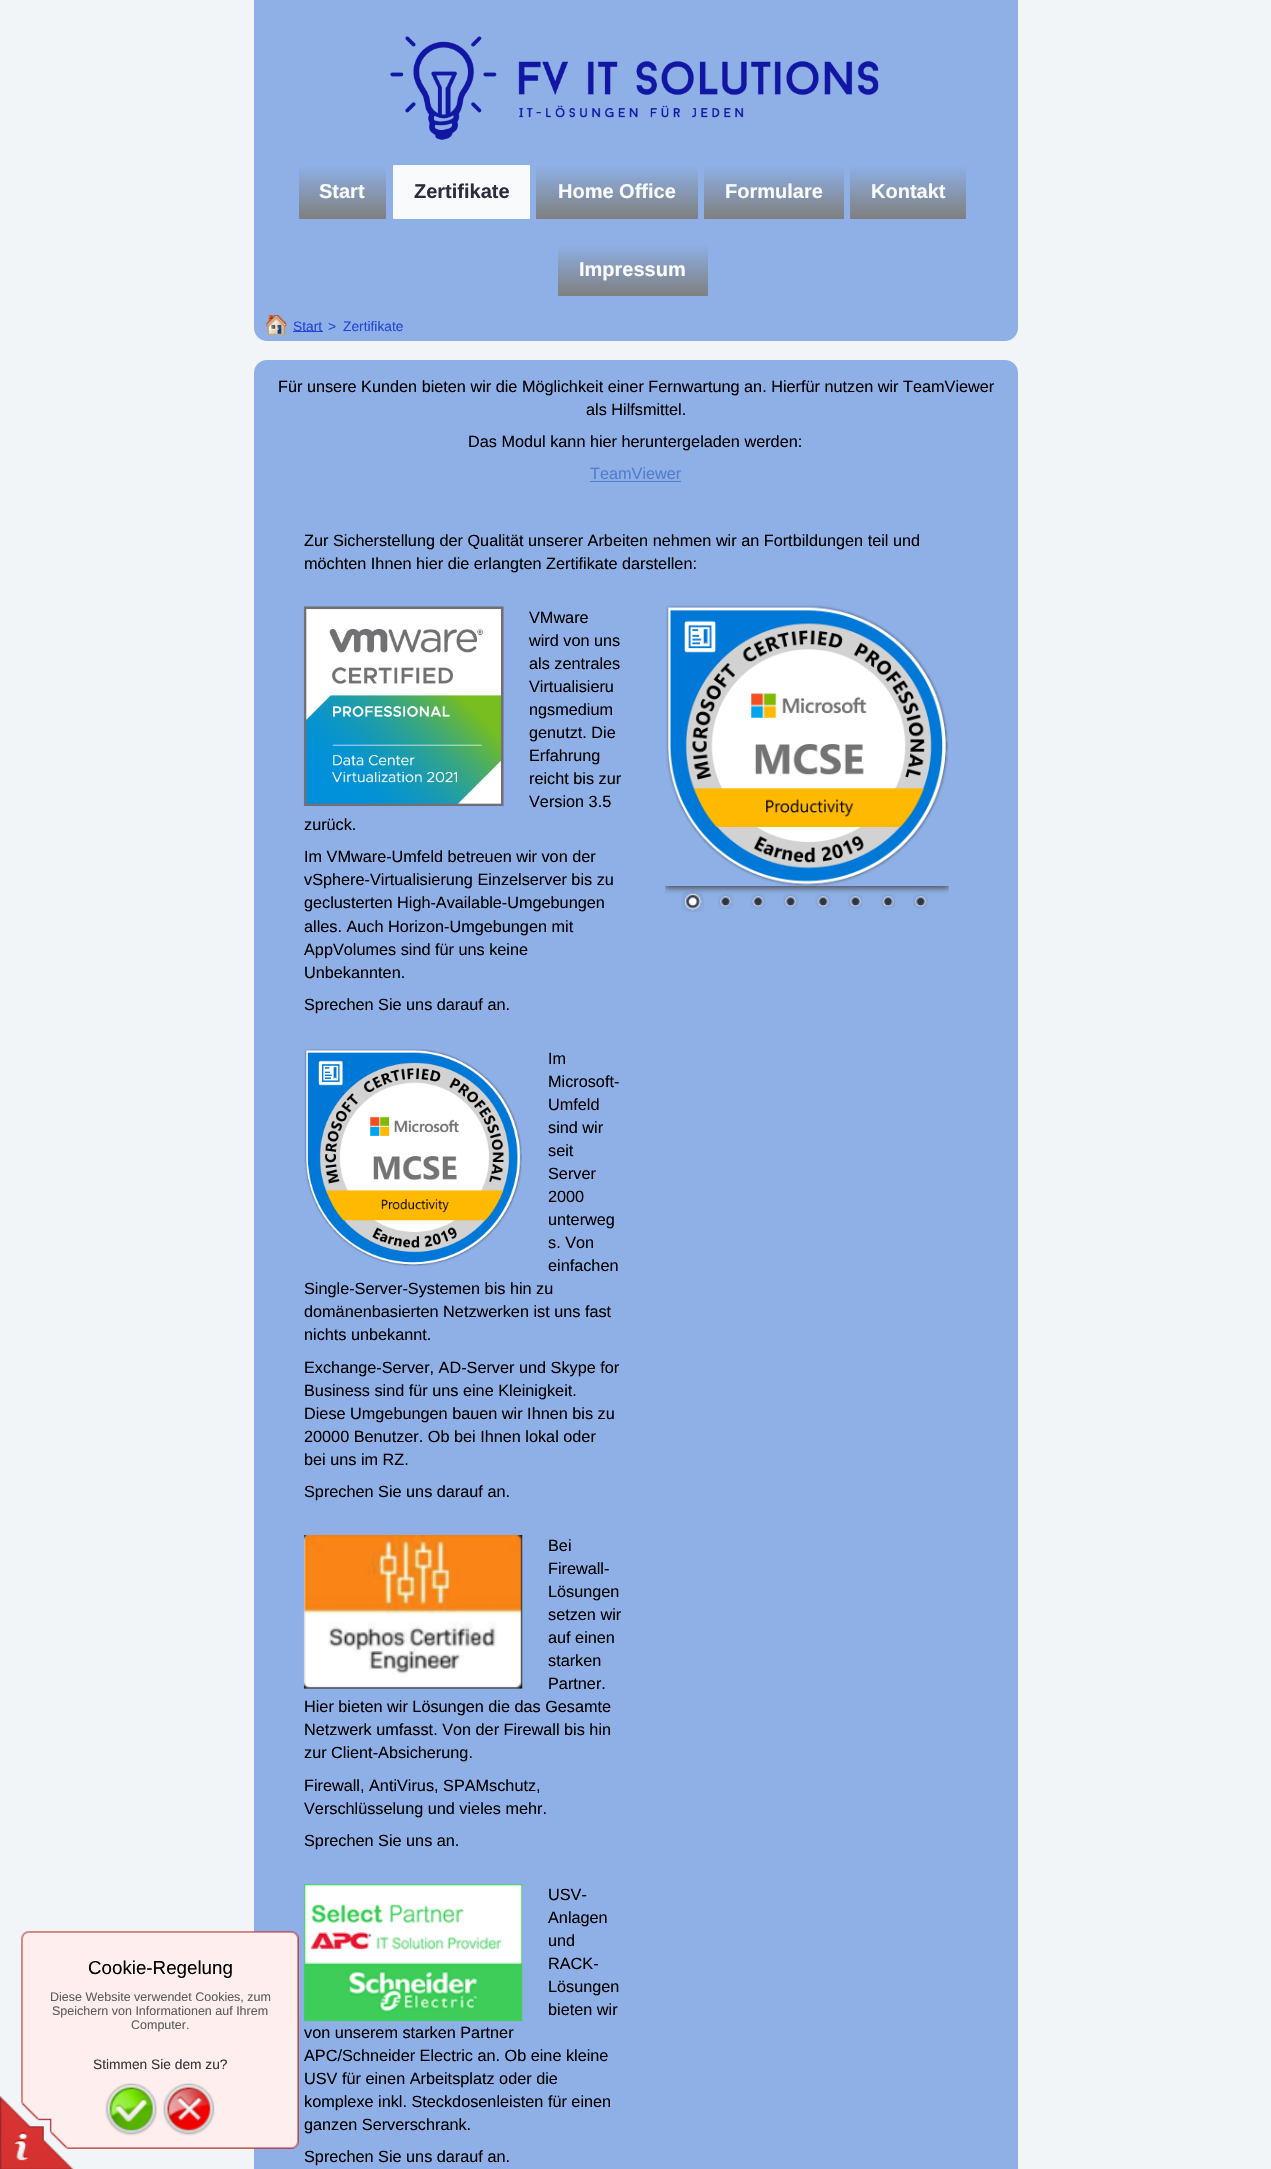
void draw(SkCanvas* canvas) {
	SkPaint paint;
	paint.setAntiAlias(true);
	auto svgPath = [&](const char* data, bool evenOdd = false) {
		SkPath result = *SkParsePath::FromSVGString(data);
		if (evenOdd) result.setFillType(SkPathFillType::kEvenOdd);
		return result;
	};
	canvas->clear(0xfff2f5f7);
	canvas->drawImageRect(SkImages::DeferredFromEncodedData(SkData::MakeFromFileName("img4.png")), SkRect::MakeXYWH(0, 2096, 74, 73), SkSamplingOptions());
	paint.setColor(0xff8eb0e7);
	canvas->drawRoundRect(SkRect::MakeXYWH(254, 360, 764, 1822), 13, 13, paint);
	canvas->drawImageRect(SkImages::DeferredFromEncodedData(SkData::MakeFromFileName("img1.png")), SkRect::MakeXYWH(21, 1931, 278, 218), SkSamplingOptions());
	SkFont f1(fontMgr->matchFamilyStyle("Liberation Sans", SkFontStyle::Normal()), 18.75);
	f1.setSubpixel(true);
	paint.setColor(0xff000000);
	canvas->drawString("Cookie-Regelung", 88, 1974, f1, paint);
	SkFont f2(fontMgr->matchFamilyStyle("Liberation Sans", SkFontStyle::Normal()), 12.5);
	f2.setSubpixel(true);
	paint.setColor(0xff5e5e5e);
	canvas->drawString("Diese Website verwendet Cookies, zum", 50, 2001, f2, paint);
	canvas->drawString("Speichern von Informationen auf Ihrem", 52, 2015, f2, paint);
	canvas->drawString("Computer.", 131, 2029, f2, paint);
	SkFont f3(fontMgr->matchFamilyStyle("Liberation Sans", SkFontStyle::Normal()), 13.75);
	f3.setSubpixel(true);
	paint.setColor(0xff383838);
	canvas->drawString("Stimmen Sie dem zu?", 93, 2069, f3, paint);
	canvas->drawImageRect(SkImages::DeferredFromEncodedData(SkData::MakeFromFileName("img2.png")), SkRect::MakeXYWH(105, 2083, 52, 53), SkSamplingOptions());
	canvas->drawImageRect(SkImages::DeferredFromEncodedData(SkData::MakeFromFileName("img3.png")), SkRect::MakeXYWH(163, 2083, 52, 53), SkSamplingOptions());
	paint.setColor(0xff8eb0e7);
	canvas->drawPath(svgPath("M254 0H1018V328C1018 335 1012 341 1005 341H267C260 341 254 335 254 328Z"), paint);
	canvas->drawImageRect(SkImages::DeferredFromEncodedData(SkData::MakeFromFileName("img5.png")), SkRect::MakeXYWH(390, 36, 489, 104), SkSamplingOptions());
	{
		const SkColor colors[] = {0xff7f7f7f, 0xff8eb0e7};
		const float stops[] = {0, 1};
		const SkPoint ends[] = {{343, 219}, {343, 165}};
		paint.setShader(SkGradientShader::MakeLinear(ends, colors, stops, 2, SkTileMode::kClamp));
		paint.setAlpha(255);
	}
	canvas->drawRoundRect(SkRect::MakeXYWH(299, 165, 87, 54), 1, 1, paint);
	SkFont f4(fontMgr->matchFamilyStyle("Liberation Sans", SkFontStyle::Bold()), 20);
	f4.setSubpixel(true);
	paint.setShader(nullptr);
	paint.setColor(0xfff9fafb);
	canvas->drawString("Start", 319, 198, f4, paint);
	canvas->drawRoundRect(SkRect::MakeXYWH(393, 165, 137, 54), 1, 1, paint);
	paint.setColor(0xff292d3d);
	canvas->drawString("Zertifikate", 414, 198, f4, paint);
	{
		const SkColor colors[] = {0xff7f7f7f, 0xff8eb0e7};
		const float stops[] = {0, 1};
		const SkPoint ends[] = {{617, 219}, {617, 165}};
		paint.setShader(SkGradientShader::MakeLinear(ends, colors, stops, 2, SkTileMode::kClamp));
		paint.setAlpha(255);
	}
	canvas->drawRoundRect(SkRect::MakeXYWH(536, 165, 162, 54), 1, 1, paint);
	paint.setShader(nullptr);
	paint.setColor(0xfff9fafb);
	canvas->drawString("Home Office", 558, 198, f4, paint);
	{
		const SkColor colors[] = {0xff7f7f7f, 0xff8eb0e7};
		const float stops[] = {0, 1};
		const SkPoint ends[] = {{774, 219}, {774, 165}};
		paint.setShader(SkGradientShader::MakeLinear(ends, colors, stops, 2, SkTileMode::kClamp));
		paint.setAlpha(255);
	}
	canvas->drawRoundRect(SkRect::MakeXYWH(704, 165, 140, 54), 1, 1, paint);
	paint.setShader(nullptr);
	paint.setColor(0xfff9fafb);
	canvas->drawString("Formulare", 725, 198, f4, paint);
	{
		const SkColor colors[] = {0xff7f7f7f, 0xff8eb0e7};
		const float stops[] = {0, 1};
		const SkPoint ends[] = {{908, 219}, {908, 165}};
		paint.setShader(SkGradientShader::MakeLinear(ends, colors, stops, 2, SkTileMode::kClamp));
		paint.setAlpha(255);
	}
	canvas->drawRoundRect(SkRect::MakeXYWH(850, 165, 116, 54), 1, 1, paint);
	paint.setShader(nullptr);
	paint.setColor(0xfff9fafb);
	canvas->drawString("Kontakt", 871, 198, f4, paint);
	{
		const SkColor colors[] = {0xff7f7f7f, 0xff8eb0e7};
		const float stops[] = {0, 1};
		const SkPoint ends[] = {{633, 296}, {633, 244}};
		paint.setShader(SkGradientShader::MakeLinear(ends, colors, stops, 2, SkTileMode::kClamp));
		paint.setAlpha(255);
	}
	canvas->drawRoundRect(SkRect::MakeXYWH(558, 244, 150, 52), 1, 1, paint);
	paint.setShader(nullptr);
	paint.setColor(0xfff9fafb);
	canvas->drawString("Impressum", 579, 276, f4, paint);
	canvas->drawImageRect(SkImages::DeferredFromEncodedData(SkData::MakeFromFileName("img6.png")), SkRect::MakeXYWH(266, 315, 21, 20), SkSamplingOptions());
	paint.setColor(0xff2445d4);
	canvas->drawRect(SkRect::MakeXYWH(293, 331, 30, 1), paint);
	canvas->drawString("Start", 293, 331, f3, paint);
	canvas->drawString(">", 328, 331, f3, paint);
	canvas->drawString("Zertifikate", 343, 331, f3, paint);
	SkFont f5(fontMgr->matchFamilyStyle("Liberation Sans", SkFontStyle::Normal()), 16.25);
	f5.setSubpixel(true);
	paint.setColor(0xff000000);
	canvas->drawString("Für unsere Kunden bieten wir die Möglichkeit einer Fernwartung an. Hierfür nutzen wir TeamViewer", 278, 392, f5, paint);
	canvas->drawString("als Hilfsmittel.", 586, 415, f5, paint);
	canvas->drawString("Das Modul kann hier heruntergeladen werden:", 468, 447, f5, paint);
	paint.setColor(0xff507ec8);
	canvas->drawString("TeamViewer", 590, 479, f5, paint);
	canvas->drawRect(SkRect::MakeXYWH(590, 481, 91, 1), paint);
	paint.setColor(0xff000000);
	canvas->drawString("Zur Sicherstellung der Qualität unserer Arbeiten nehmen wir an Fortbildungen teil und", 304, 546, f5, paint);
	canvas->drawString("möchten Ihnen hier die erlangten Zertifikate darstellen:", 304, 569, f5, paint);
	canvas->drawImageRect(SkImages::DeferredFromEncodedData(SkData::MakeFromFileName("img7.png")), SkRect::MakeXYWH(303, 606, 201, 201), SkSamplingOptions());
	canvas->drawString("VMware", 529, 623, f5, paint);
	canvas->drawString("wird von uns", 529, 646, f5, paint);
	canvas->drawString("als zentrales", 529, 669, f5, paint);
	canvas->drawString("Virtualisieru", 529, 692, f5, paint);
	canvas->drawString("ngsmedium", 529, 715, f5, paint);
	canvas->drawString("genutzt. Die", 529, 738, f5, paint);
	canvas->drawString("Erfahrung", 529, 761, f5, paint);
	canvas->drawString("reicht bis zur", 529, 784, f5, paint);
	canvas->drawString("Version 3.5", 529, 807, f5, paint);
	canvas->drawString("zurück.", 304, 830, f5, paint);
	canvas->drawString("Im VMware-Umfeld betreuen wir von der", 304, 862, f5, paint);
	canvas->drawString("vSphere-Virtualisierung Einzelserver bis zu", 304, 885, f5, paint);
	canvas->drawString("geclusterten High-Available-Umgebungen", 304, 908, f5, paint);
	canvas->drawString("alles. Auch Horizon-Umgebungen mit", 304, 932, f5, paint);
	canvas->drawString("AppVolumes sind für uns keine", 304, 955, f5, paint);
	canvas->drawString("Unbekannten.", 304, 978, f5, paint);
	canvas->drawString("Sprechen Sie uns darauf an.", 304, 1010, f5, paint);
	canvas->drawImageRect(SkImages::DeferredFromEncodedData(SkData::MakeFromFileName("img8.png")), SkRect::MakeXYWH(304, 1049, 218, 217), SkSamplingOptions());
	canvas->drawString("Im", 548, 1064, f5, paint);
	canvas->drawString("Microsoft-", 548, 1087, f5, paint);
	canvas->drawString("Umfeld", 548, 1110, f5, paint);
	canvas->drawString("sind wir", 548, 1133, f5, paint);
	canvas->drawString("seit", 548, 1156, f5, paint);
	canvas->drawString("Server", 548, 1179, f5, paint);
	canvas->drawString("2000", 548, 1202, f5, paint);
	canvas->drawString("unterweg", 548, 1225, f5, paint);
	canvas->drawString("s. Von", 548, 1248, f5, paint);
	canvas->drawString("einfachen", 548, 1271, f5, paint);
	canvas->drawString("Single-Server-Systemen bis hin zu", 304, 1294, f5, paint);
	canvas->drawString("domänenbasierten Netzwerken ist uns fast", 304, 1317, f5, paint);
	canvas->drawString("nichts unbekannt.", 304, 1340, f5, paint);
	canvas->drawString("Exchange-Server, AD-Server und Skype for", 304, 1373, f5, paint);
	canvas->drawString("Business sind für uns eine Kleinigkeit.", 304, 1396, f5, paint);
	canvas->drawString("Diese Umgebungen bauen wir Ihnen bis zu", 304, 1419, f5, paint);
	canvas->drawString("20000 Benutzer. Ob bei Ihnen lokal oder", 304, 1442, f5, paint);
	canvas->drawString("bei uns im RZ.", 304, 1465, f5, paint);
	canvas->drawString("Sprechen Sie uns darauf an.", 304, 1497, f5, paint);
	canvas->drawImageRect(SkImages::DeferredFromEncodedData(SkData::MakeFromFileName("img9.png")), SkRect::MakeXYWH(303, 1535, 220, 154), SkSamplingOptions());
	canvas->drawString("Bei", 548, 1551, f5, paint);
	canvas->drawString("Firewall-", 548, 1574, f5, paint);
	canvas->drawString("Lösungen", 548, 1597, f5, paint);
	canvas->drawString("setzen wir", 548, 1620, f5, paint);
	canvas->drawString("auf einen", 548, 1643, f5, paint);
	canvas->drawString("starken", 548, 1666, f5, paint);
	canvas->drawString("Partner.", 548, 1689, f5, paint);
	canvas->drawString("Hier bieten wir Lösungen die das Gesamte", 304, 1712, f5, paint);
	canvas->drawString("Netzwerk umfasst. Von der Firewall bis hin", 304, 1735, f5, paint);
	canvas->drawString("zur Client-Absicherung.", 304, 1758, f5, paint);
	canvas->drawString("Firewall, AntiVirus, SPAMschutz,", 304, 1791, f5, paint);
	canvas->drawString("Verschlüsselung und vieles mehr.", 304, 1814, f5, paint);
	canvas->drawString("Sprechen Sie uns an.", 304, 1846, f5, paint);
	canvas->drawImageRect(SkImages::DeferredFromEncodedData(SkData::MakeFromFileName("img10.png")), SkRect::MakeXYWH(303, 1883, 220, 139), SkSamplingOptions());
	canvas->drawString("USV-", 548, 1900, f5, paint);
	canvas->drawString("Anlagen", 548, 1923, f5, paint);
	canvas->drawString("und", 548, 1946, f5, paint);
	canvas->drawString("RACK-", 548, 1969, f5, paint);
	canvas->drawString("Lösungen", 548, 1992, f5, paint);
	canvas->drawString("bieten wir", 548, 2015, f5, paint);
	canvas->drawString("von unserem starken Partner", 304, 2038, f5, paint);
	canvas->drawString("APC/Schneider Electric an. Ob eine kleine", 304, 2061, f5, paint);
	canvas->drawString("USV für einen Arbeitsplatz oder die", 304, 2084, f5, paint);
	canvas->drawString("komplexe inkl. Steckdosenleisten für einen", 304, 2107, f5, paint);
	canvas->drawString("ganzen Serverschrank.", 304, 2130, f5, paint);
	canvas->drawString("Sprechen Sie uns darauf an.", 304, 2162, f5, paint);
	canvas->drawImageRect(SkImages::DeferredFromEncodedData(SkData::MakeFromFileName("img12.png")), SkRect::MakeXYWH(681, 890, 23, 22), SkSamplingOptions());
	canvas->drawImageRect(SkImages::DeferredFromEncodedData(SkData::MakeFromFileName("img13.png")), SkRect::MakeXYWH(718, 894, 15, 15), SkSamplingOptions());
	canvas->drawImageRect(SkImages::DeferredFromEncodedData(SkData::MakeFromFileName("img14.png")), SkRect::MakeXYWH(750, 894, 16, 15), SkSamplingOptions());
	canvas->drawImageRect(SkImages::DeferredFromEncodedData(SkData::MakeFromFileName("img13.png")), SkRect::MakeXYWH(783, 894, 15, 15), SkSamplingOptions());
	canvas->drawImageRect(SkImages::DeferredFromEncodedData(SkData::MakeFromFileName("img14.png")), SkRect::MakeXYWH(815, 894, 16, 15), SkSamplingOptions());
	canvas->drawImageRect(SkImages::DeferredFromEncodedData(SkData::MakeFromFileName("img13.png")), SkRect::MakeXYWH(848, 894, 15, 15), SkSamplingOptions());
	canvas->drawImageRect(SkImages::DeferredFromEncodedData(SkData::MakeFromFileName("img14.png")), SkRect::MakeXYWH(880, 894, 16, 15), SkSamplingOptions());
	canvas->drawImageRect(SkImages::DeferredFromEncodedData(SkData::MakeFromFileName("img13.png")), SkRect::MakeXYWH(913, 894, 15, 15), SkSamplingOptions());
	canvas->save();
	canvas->clipRect(SkRect::MakeXYWH(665, 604, 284, 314));
	canvas->clipPath(svgPath("M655 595H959V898H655ZM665 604H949V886H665Z", true), true);
	paint.setColor(0xff4a4a4a);
	paint.setMaskFilter(SkMaskFilter::MakeBlur(kNormal_SkBlurStyle, 3));
	canvas->drawRect(SkRect::MakeXYWH(665, 605, 284, 283), paint);
	paint.setMaskFilter(nullptr);
	canvas->restore();
	canvas->drawImageRect(SkImages::DeferredFromEncodedData(SkData::MakeFromFileName("img11.png")), SkRect::MakeXYWH(666, 605, 283, 281), SkSamplingOptions());
}
